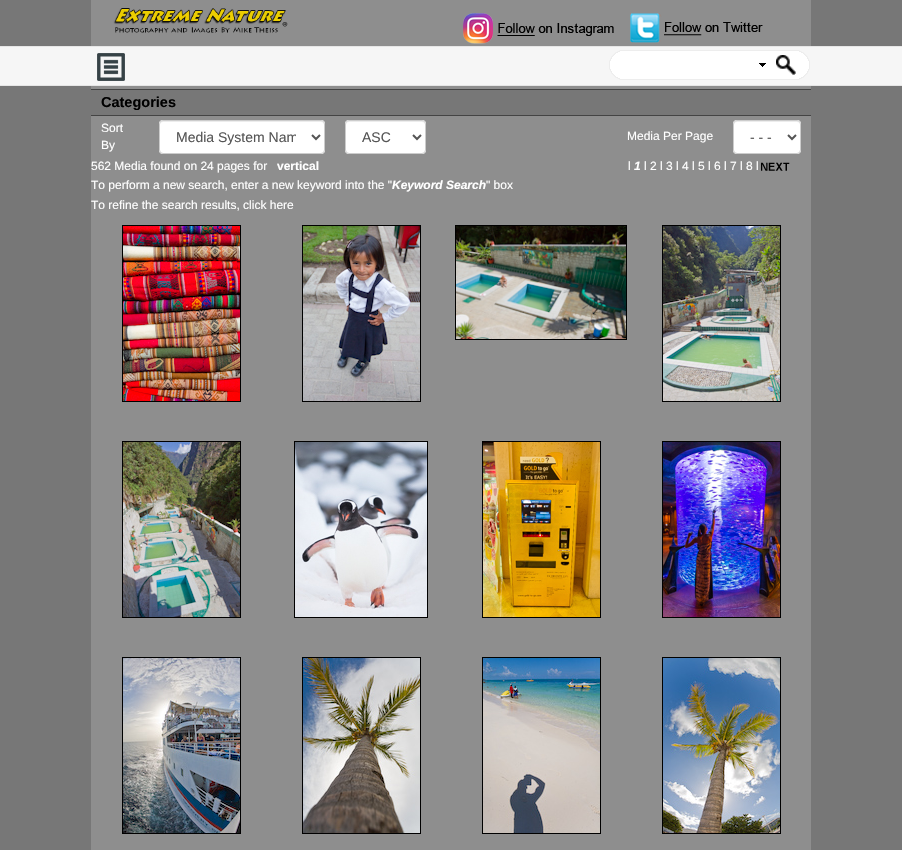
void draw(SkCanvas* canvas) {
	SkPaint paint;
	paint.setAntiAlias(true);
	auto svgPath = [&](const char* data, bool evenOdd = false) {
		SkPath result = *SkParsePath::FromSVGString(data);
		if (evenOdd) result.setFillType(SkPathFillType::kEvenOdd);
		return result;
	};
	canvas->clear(0xff777777);
	paint.setColor(0xff8e8e8e);
	canvas->drawRect(SkRect::MakeXYWH(91, 0, 720, 46), paint);
	canvas->drawImageRect(SkImages::DeferredFromEncodedData(SkData::MakeFromFileName("img1.png")), SkRect::MakeXYWH(113, 8, 175, 25), SkSamplingOptions());
	canvas->drawImageRect(SkImages::DeferredFromEncodedData(SkData::MakeFromFileName("img2.png")), SkRect::MakeXYWH(463, 13, 151, 31), SkSamplingOptions());
	canvas->drawImageRect(SkImages::DeferredFromEncodedData(SkData::MakeFromFileName("img3.png")), SkRect::MakeXYWH(630, 13, 133, 30), SkSamplingOptions());
	paint.setColor(0xfff6f6f6);
	canvas->drawRect(SkRect::MakeXYWH(0, 47, 902, 38), paint);
	paint.setColor(0xffe6e6e6);
	canvas->drawRect(SkRect::MakeXYWH(0, 46, 902, 1), paint);
	canvas->drawRect(SkRect::MakeXYWH(0, 85, 902, 1), paint);
	canvas->drawImageRect(SkImages::DeferredFromEncodedData(SkData::MakeFromFileName("img4.png")), SkRect::MakeXYWH(97, 53, 28, 28), SkSamplingOptions());
	canvas->drawImageRect(SkImages::DeferredFromEncodedData(SkData::MakeFromFileName("img5.png")), SkRect::MakeXYWH(609, 50, 166, 30), SkSamplingOptions());
	canvas->drawImageRect(SkImages::DeferredFromEncodedData(SkData::MakeFromFileName("img6.png")), SkRect::MakeXYWH(759, 63, 7, 4), SkSamplingOptions());
	canvas->drawImageRect(SkImages::DeferredFromEncodedData(SkData::MakeFromFileName("img7.png")), SkRect::MakeXYWH(775, 50, 35, 30), SkSamplingOptions());
	canvas->drawImageRect(SkImages::DeferredFromEncodedData(SkData::MakeFromFileName("img8.png")), SkRect::MakeXYWH(776, 55, 20, 20), SkSamplingOptions());
	paint.setColor(0xff8e8e8e);
	canvas->drawRect(SkRect::MakeXYWH(91, 86, 720, 764), paint);
	paint.setColor(0xff777777);
	canvas->drawRect(SkRect::MakeXYWH(91, 90, 720, 25), paint);
	paint.setColor(0xff444444);
	canvas->drawRect(SkRect::MakeXYWH(91, 89, 720, 1), paint);
	canvas->drawRect(SkRect::MakeXYWH(91, 115, 720, 1), paint);
	SkFont f1(fontMgr->matchFamilyStyle("Liberation Sans", SkFontStyle::Bold()), 14.5);
	f1.setSubpixel(true);
	paint.setColor(0xff000000);
	canvas->drawString("Categories", 101, 107, f1, paint);
	SkFont f2(fontMgr->matchFamilyStyle("Liberation Sans", SkFontStyle::Normal()), 12);
	f2.setSubpixel(true);
	paint.setColor(0xffffffff);
	canvas->drawString("Sort", 101, 132, f2, paint);
	canvas->drawString("By", 101, 149, f2, paint);
	canvas->drawRoundRect(SkRect::MakeXYWH(159, 120, 166, 34), 4, 4, paint);
	paint.setColor(0xffececec);
	canvas->drawPath(svgPath("M163 122H321C323 122 324 123 324 125C324 123 323 121 321 121H163C161 121 160 123 160 125C160 123 161 122 163 122Z"), paint);
	paint.setStroke(true);
	paint.setStrokeWidth(1);
	paint.setColor(0xffcccccc);
	canvas->drawRoundRect(SkRect::MakeXYWH(159.5, 120.5, 165, 33), 3.5, 3.5, paint);
	paint.setStrokeWidth(2);
	paint.setColor(0xff555555);
	canvas->drawPath(svgPath("M312 135L316 139L320 135"), paint);
	canvas->save();
	canvas->clipRect(SkRect::MakeXYWH(176, 128, 120, 18));
	SkFont f3(fontMgr->matchFamilyStyle("Liberation Sans", SkFontStyle::Normal()), 14);
	f3.setSubpixel(true);
	paint.setStroke(false);
	canvas->drawString("Media System Nam", 176, 142, f3, paint);
	canvas->restore();
	paint.setColor(0xffffffff);
	canvas->drawRoundRect(SkRect::MakeXYWH(345, 120, 81, 34), 4, 4, paint);
	paint.setColor(0xffececec);
	canvas->drawPath(svgPath("M349 122H422C424 122 425 123 425 125C425 118 414 121 410 121H361C357 121 346 118 346 125C346 123 347 122 349 122Z"), paint);
	paint.setStroke(true);
	paint.setStrokeWidth(1);
	paint.setColor(0xffcccccc);
	canvas->drawRoundRect(SkRect::MakeXYWH(345.5, 120.5, 80, 33), 3.5, 3.5, paint);
	paint.setStrokeWidth(2);
	paint.setColor(0xff555555);
	canvas->drawPath(svgPath("M413 135L417 139L421 135"), paint);
	paint.setStroke(false);
	canvas->drawString("ASC", 362, 142, f3, paint);
	paint.setColor(0xffffffff);
	canvas->drawString("Media Per Page", 627, 140, f2, paint);
	canvas->drawRoundRect(SkRect::MakeXYWH(733, 120, 68, 34), 4, 4, paint);
	paint.setColor(0xffececec);
	canvas->drawPath(svgPath("M737 122H797C799 122 800 123 800 125C800 118 791 121 787 121H747C743 121 734 118 734 125C734 123 735 122 737 122Z"), paint);
	paint.setStroke(true);
	paint.setStrokeWidth(1);
	paint.setColor(0xffcccccc);
	canvas->drawRoundRect(SkRect::MakeXYWH(733.5, 120.5, 67, 33), 3.5, 3.5, paint);
	paint.setStrokeWidth(2);
	paint.setColor(0xff555555);
	canvas->drawPath(svgPath("M788 135L792 139L796 135"), paint);
	paint.setStroke(false);
	canvas->drawString("- - -", 750, 142, f3, paint);
	paint.setColor(0xffffffff);
	canvas->drawString("562 Media found on 24 pages for", 91, 170, f2, paint);
	SkFont f4(fontMgr->matchFamilyStyle("Liberation Sans", SkFontStyle::Bold()), 12);
	f4.setSubpixel(true);
	canvas->drawString("vertical", 277, 170, f4, paint);
	canvas->drawString("l", 628, 170, f2, paint);
	SkFont f5(fontMgr->matchFamilyStyle("Liberation Sans", SkFontStyle::BoldItalic()), 12);
	f5.setSubpixel(true);
	canvas->drawString("1", 634, 170, f5, paint);
	canvas->drawString("l 2 l 3 l 4 l 5 l 6 l 7 l 8 l", 644, 170, f2, paint);
	canvas->drawImageRect(SkImages::DeferredFromEncodedData(SkData::MakeFromFileName("img9.png")), SkRect::MakeXYWH(761, 162, 29, 9), SkSamplingOptions());
	canvas->drawString("To perform a new search, enter a new keyword into the \"", 91, 189, f2, paint);
	canvas->drawString("Keyword Search", 392, 189, f5, paint);
	canvas->drawString("\" box", 486, 189, f2, paint);
	canvas->drawString("To refine the search results, click here", 91, 209, f2, paint);
	paint.setStroke(true);
	paint.setStrokeWidth(1);
	paint.setColor(0xff000000);
	canvas->drawRect(SkRect::MakeXYWH(122.5, 225.5, 118, 176), paint);
	canvas->drawImageRect(SkImages::DeferredFromEncodedData(SkData::MakeFromFileName("img10.png")), SkRect::MakeXYWH(123, 226, 117, 175), SkSamplingOptions());
	canvas->drawRect(SkRect::MakeXYWH(302.5, 225.5, 118, 176), paint);
	canvas->drawImageRect(SkImages::DeferredFromEncodedData(SkData::MakeFromFileName("img11.png")), SkRect::MakeXYWH(303, 226, 117, 175), SkSamplingOptions());
	canvas->drawRect(SkRect::MakeXYWH(455.5, 225.5, 171, 114), paint);
	canvas->drawImageRect(SkImages::DeferredFromEncodedData(SkData::MakeFromFileName("img12.png")), SkRect::MakeXYWH(456, 226, 170, 113), SkSamplingOptions());
	canvas->drawRect(SkRect::MakeXYWH(662.5, 225.5, 118, 176), paint);
	canvas->drawImageRect(SkImages::DeferredFromEncodedData(SkData::MakeFromFileName("img13.png")), SkRect::MakeXYWH(663, 226, 117, 175), SkSamplingOptions());
	canvas->drawRect(SkRect::MakeXYWH(122.5, 441.5, 118, 176), paint);
	canvas->drawImageRect(SkImages::DeferredFromEncodedData(SkData::MakeFromFileName("img14.png")), SkRect::MakeXYWH(123, 442, 117, 175), SkSamplingOptions());
	canvas->drawRect(SkRect::MakeXYWH(294.5, 441.5, 133, 176), paint);
	canvas->drawImageRect(SkImages::DeferredFromEncodedData(SkData::MakeFromFileName("img15.png")), SkRect::MakeXYWH(295, 442, 132, 175), SkSamplingOptions());
	canvas->drawRect(SkRect::MakeXYWH(482.5, 441.5, 118, 176), paint);
	canvas->drawImageRect(SkImages::DeferredFromEncodedData(SkData::MakeFromFileName("img16.png")), SkRect::MakeXYWH(483, 442, 117, 175), SkSamplingOptions());
	canvas->drawRect(SkRect::MakeXYWH(662.5, 441.5, 118, 176), paint);
	canvas->drawImageRect(SkImages::DeferredFromEncodedData(SkData::MakeFromFileName("img17.png")), SkRect::MakeXYWH(663, 442, 117, 175), SkSamplingOptions());
	canvas->drawRect(SkRect::MakeXYWH(122.5, 657.5, 118, 176), paint);
	canvas->drawImageRect(SkImages::DeferredFromEncodedData(SkData::MakeFromFileName("img18.png")), SkRect::MakeXYWH(123, 658, 117, 175), SkSamplingOptions());
	canvas->drawRect(SkRect::MakeXYWH(302.5, 657.5, 118, 176), paint);
	canvas->drawImageRect(SkImages::DeferredFromEncodedData(SkData::MakeFromFileName("img19.png")), SkRect::MakeXYWH(303, 658, 117, 175), SkSamplingOptions());
	canvas->drawRect(SkRect::MakeXYWH(482.5, 657.5, 118, 176), paint);
	canvas->drawImageRect(SkImages::DeferredFromEncodedData(SkData::MakeFromFileName("img20.png")), SkRect::MakeXYWH(483, 658, 117, 175), SkSamplingOptions());
	canvas->drawRect(SkRect::MakeXYWH(662.5, 657.5, 118, 176), paint);
	canvas->drawImageRect(SkImages::DeferredFromEncodedData(SkData::MakeFromFileName("img21.png")), SkRect::MakeXYWH(663, 658, 117, 175), SkSamplingOptions());
}
